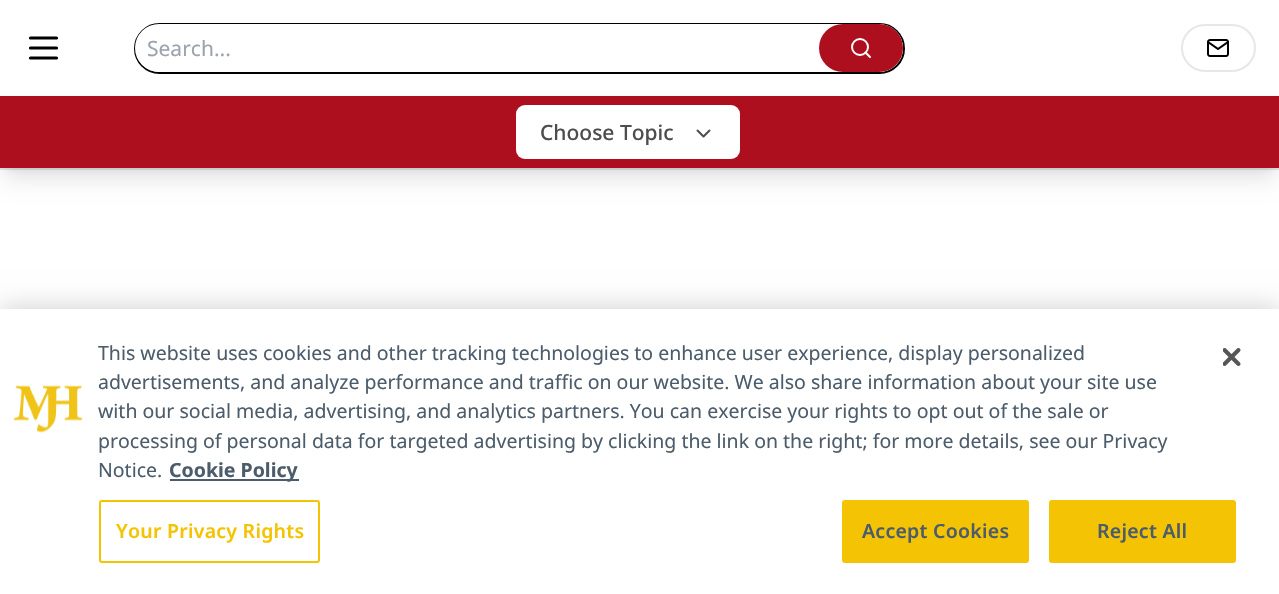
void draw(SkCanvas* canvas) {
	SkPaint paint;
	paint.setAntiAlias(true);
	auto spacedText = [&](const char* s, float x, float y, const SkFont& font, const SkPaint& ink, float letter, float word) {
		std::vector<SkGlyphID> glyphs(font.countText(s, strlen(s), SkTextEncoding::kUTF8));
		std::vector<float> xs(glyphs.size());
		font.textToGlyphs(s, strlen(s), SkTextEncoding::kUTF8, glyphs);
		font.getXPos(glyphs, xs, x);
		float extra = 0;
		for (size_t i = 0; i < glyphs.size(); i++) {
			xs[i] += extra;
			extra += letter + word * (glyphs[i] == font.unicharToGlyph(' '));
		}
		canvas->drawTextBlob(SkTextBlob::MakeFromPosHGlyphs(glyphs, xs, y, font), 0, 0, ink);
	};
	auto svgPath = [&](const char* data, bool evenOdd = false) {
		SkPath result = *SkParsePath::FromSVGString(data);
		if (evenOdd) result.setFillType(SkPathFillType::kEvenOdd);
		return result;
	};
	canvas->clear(0xffffffff);
	paint.setColor(0xffe5e7eb);
	canvas->drawRect(SkRect::MakeXYWH(0, 168, 1279, 2), paint);
	paint.setStroke(true);
	paint.setStrokeWidth(3.2);
	paint.setStrokeCap(SkPaint::kRound_Cap);
	paint.setStrokeJoin(SkPaint::kRound_Join);
	paint.setColor(0xff000000);
	canvas->drawPath(svgPath("M30.5 38H56.5M30.5 48H56.5M30.5 58H56.5"), paint);
	paint.setStrokeWidth(2);
	paint.setStrokeCap(SkPaint::kButt_Cap);
	paint.setStrokeJoin(SkPaint::kMiter_Join);
	canvas->drawRoundRect(SkRect::MakeXYWH(135, 24, 769, 49), 24.5, 24.5, paint);
	paint.setStroke(false);
	paint.setColor(0xffffffff);
	canvas->drawRoundRect(SkRect::MakeXYWH(135, 24, 768, 48), 24, 24, paint);
	SkFont f1(fontMgr->matchFamilyStyle("Noto Sans", SkFontStyle::Normal()), 21);
	f1.setSubpixel(true);
	paint.setColor(0xff9ca3af);
	canvas->drawString("Search...", 147, 56, f1, paint);
	paint.setColor(0xffae0f1f);
	canvas->drawRoundRect(SkRect::MakeXYWH(819, 24, 84, 48), 24, 24, paint);
	paint.setStroke(true);
	paint.setColor(0xffffffff);
	canvas->drawCircle(860, 47, 8, paint);
	paint.setStrokeCap(SkPaint::kRound_Cap);
	paint.setStrokeJoin(SkPaint::kRound_Join);
	canvas->drawPath(svgPath("M870 57L865.5 52.5"), paint);
	paint.setStrokeCap(SkPaint::kButt_Cap);
	paint.setStrokeJoin(SkPaint::kMiter_Join);
	paint.setColor(0xffe5e7eb);
	canvas->drawRoundRect(SkRect::MakeXYWH(1182, 25, 73, 46), 23, 23, paint);
	canvas->drawImageRect(SkImages::DeferredFromEncodedData(SkData::MakeFromFileName("img1.png")), SkRect::MakeXYWH(1207, 39, 22, 18), SkSamplingOptions());
	paint.setStroke(false);
	paint.setColor(0x1a000000);
	paint.setMaskFilter(SkMaskFilter::MakeBlur(kNormal_SkBlurStyle, 4.5));
	canvas->drawRect(SkRect::MakeXYWH(6, 108, 1268, 60), paint);
	paint.setMaskFilter(nullptr);
	paint.setMaskFilter(SkMaskFilter::MakeBlur(kNormal_SkBlurStyle, 11));
	canvas->drawRect(SkRect::MakeXYWH(5, 116, 1270, 63), paint);
	paint.setMaskFilter(nullptr);
	paint.setColor(0xffae0f1f);
	canvas->drawRect(SkRect::MakeXYWH(0, 96, 1279, 72), paint);
	paint.setColor(0xffffffff);
	canvas->drawRoundRect(SkRect::MakeXYWH(516, 105, 224, 54), 9, 9, paint);
	SkFont f2(fontMgr->matchFamilyStyle("Noto Sans", SkFontStyle(500, SkFontStyle::kNormal_Width, SkFontStyle::kUpright_Slant)), 21);
	f2.setSubpixel(true);
	paint.setColor(0xff4d4d4d);
	canvas->drawString("Choose Topic", 540, 140, f2, paint);
	paint.setStroke(true);
	paint.setStrokeCap(SkPaint::kRound_Cap);
	paint.setStrokeJoin(SkPaint::kRound_Join);
	canvas->drawPath(svgPath("M697.5 130.5L703.5 136.5L709.5 130.5"), paint);
	paint.setStroke(false);
	paint.setColor(0x33000000);
	paint.setMaskFilter(SkMaskFilter::MakeBlur(kNormal_SkBlurStyle, 13.5));
	canvas->drawRect(SkRect::MakeXYWH(0, 309, 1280, 285), paint);
	paint.setMaskFilter(nullptr);
	paint.setColor(0xffffffff);
	canvas->drawRect(SkRect::MakeXYWH(0, 309, 1279, 285), paint);
	canvas->drawImageRect(SkImages::DeferredFromEncodedData(SkData::MakeFromFileName("img2.png")), SkRect::MakeXYWH(13, 385, 70, 48), SkSamplingOptions());
	SkFont f3(fontMgr->matchFamilyStyle("Noto Sans", SkFontStyle::Normal()), 19.5);
	f3.setSubpixel(true);
	paint.setColor(0xff4c5c6b);
	canvas->drawString("This website uses cookies and other tracking technologies to enhance user experience, display personalized", 98, 360, f3, paint);
	canvas->drawString("advertisements, and analyze performance and traffic on our website. We also share information about your site use", 98, 389, f3, paint);
	canvas->drawString("with our social media, advertising, and analytics partners. You can exercise your rights to opt out of the sale or", 98, 418, f3, paint);
	canvas->drawString("processing of personal data for targeted advertising by clicking the link on the right; for more details, see our Privacy", 98, 448, f3, paint);
	canvas->drawString("Notice.", 98, 477, f3, paint);
	canvas->drawRect(SkRect::MakeXYWH(170, 479, 129, 2), paint);
	SkFont f4(fontMgr->matchFamilyStyle("Noto Sans", SkFontStyle::Bold()), 19.5);
	f4.setSubpixel(true);
	canvas->drawString("Cookie Policy", 169, 477, f4, paint);
	paint.setStroke(true);
	paint.setStrokeCap(SkPaint::kButt_Cap);
	paint.setStrokeJoin(SkPaint::kMiter_Join);
	paint.setColor(0xfff4c404);
	canvas->drawRoundRect(SkRect::MakeXYWH(100, 501, 219, 61), 2, 2, paint);
	SkFont f5(fontMgr->matchFamilyStyle("Noto Sans", SkFontStyle(600, SkFontStyle::kNormal_Width, SkFontStyle::kUpright_Slant)), 19.5);
	f5.setSubpixel(true);
	paint.setStroke(false);
	spacedText("Your Privacy Rights", 116, 538, f5, paint, 0.25, 0);
	canvas->drawRoundRect(SkRect::MakeXYWH(843, 501, 185, 61), 2, 2, paint);
	paint.setStroke(true);
	canvas->drawRoundRect(SkRect::MakeXYWH(843, 501, 185, 61), 2, 2, paint);
	paint.setStroke(false);
	paint.setColor(0xff4c5c6b);
	spacedText("Accept Cookies", 862, 538, f5, paint, 0.25, 0);
	paint.setColor(0xfff4c404);
	canvas->drawRoundRect(SkRect::MakeXYWH(1050, 501, 185, 61), 2, 2, paint);
	paint.setStroke(true);
	canvas->drawRoundRect(SkRect::MakeXYWH(1050, 501, 185, 61), 2, 2, paint);
	paint.setStroke(false);
	paint.setColor(0xff4c5c6b);
	spacedText("Reject All", 1097, 538, f5, paint, 0.25, 0);
	canvas->drawImageRect(SkImages::DeferredFromEncodedData(SkData::MakeFromFileName("img3.png")), SkRect::MakeXYWH(1223, 348, 18, 18), SkSamplingOptions());
}
